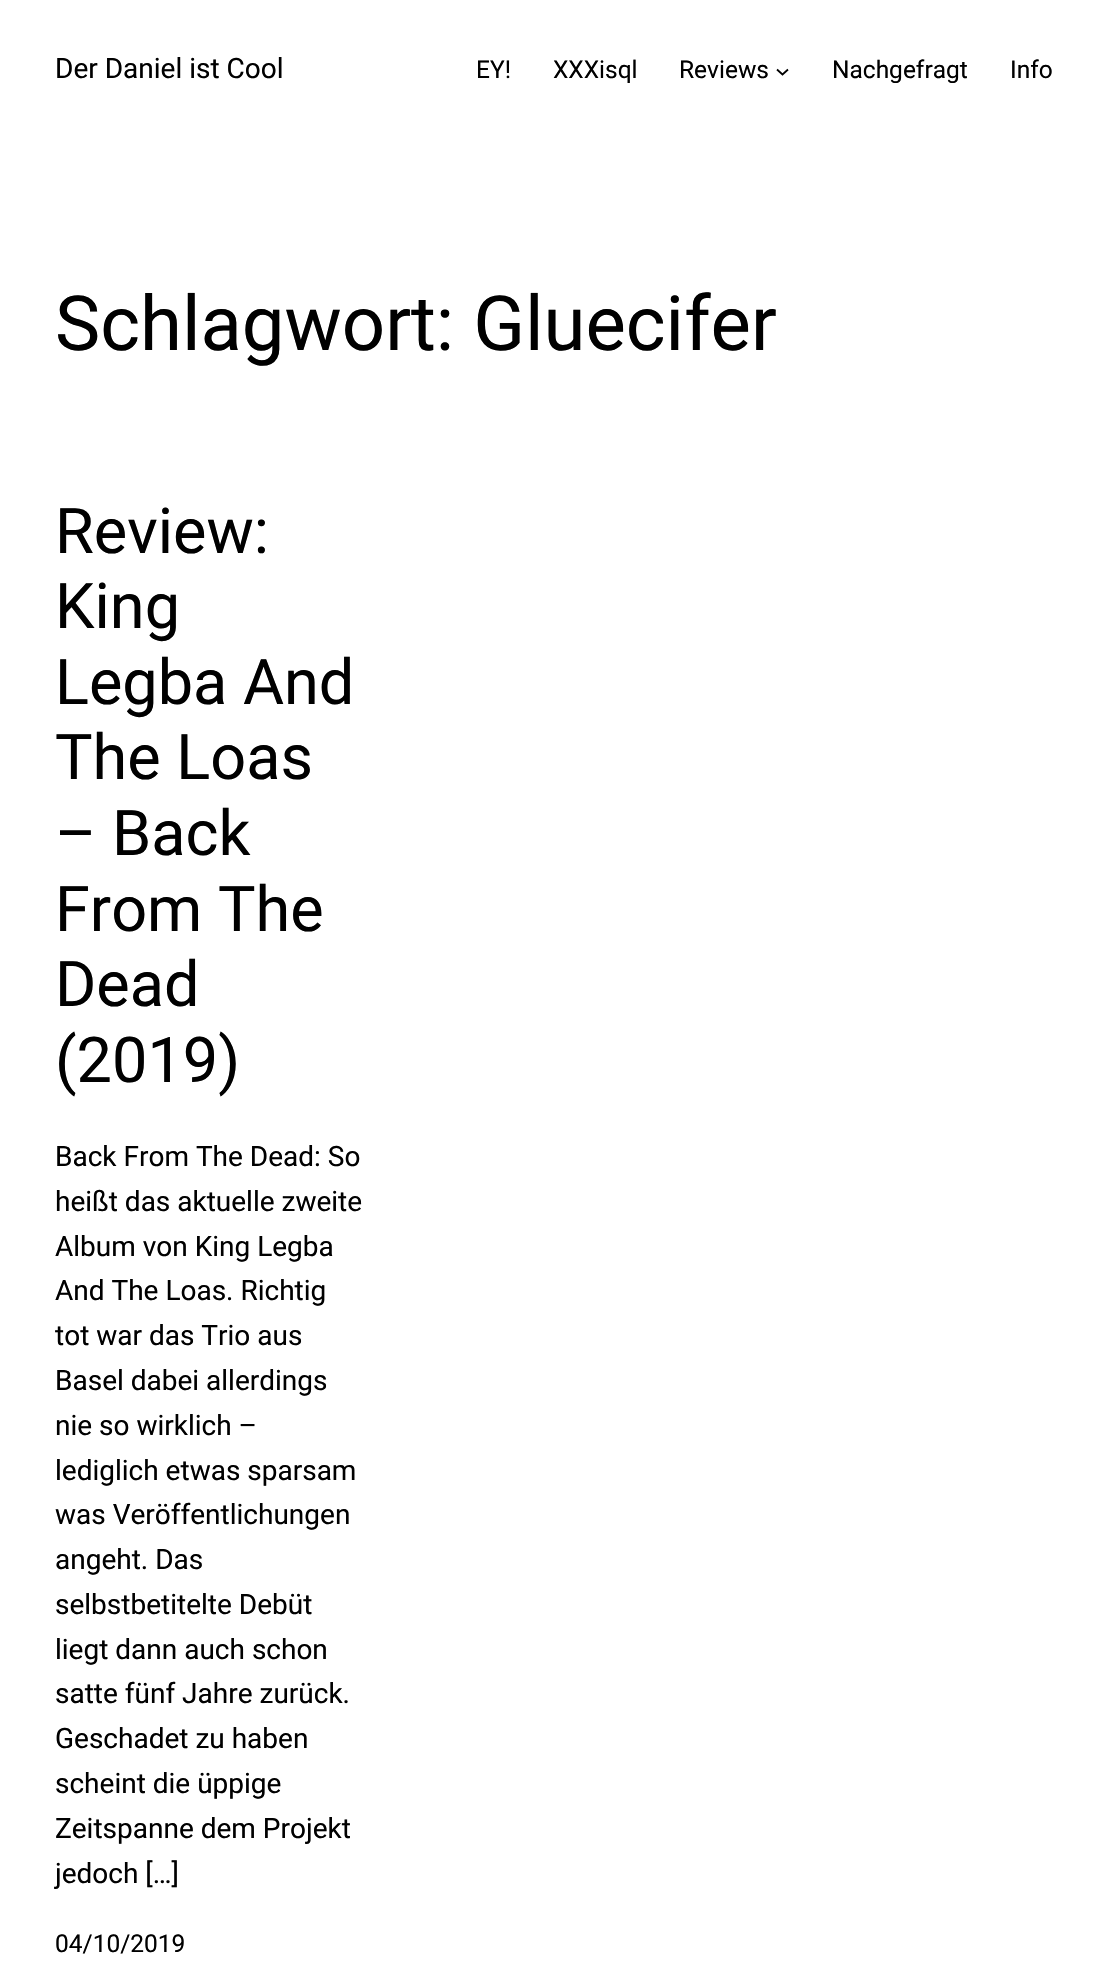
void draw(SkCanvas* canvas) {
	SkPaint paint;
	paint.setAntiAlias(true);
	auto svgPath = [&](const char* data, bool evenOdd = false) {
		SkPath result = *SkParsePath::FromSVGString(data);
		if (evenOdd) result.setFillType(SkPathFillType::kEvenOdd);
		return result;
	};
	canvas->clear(0xffffffff);
	SkFont f1(fontMgr->matchFamilyStyle("Roboto", SkFontStyle::Normal()), 28);
	f1.setSubpixel(true);
	paint.setColor(0xff000000);
	canvas->drawString("Der Daniel ist Cool", 55, 78, f1, paint);
	SkFont f2(fontMgr->matchFamilyStyle("Roboto", SkFontStyle::Normal()), 24.5);
	f2.setSubpixel(true);
	canvas->drawString("EY!", 476, 78, f2, paint);
	canvas->drawString("XXXisql", 553, 78, f2, paint);
	canvas->drawString("Reviews", 679, 78, f2, paint);
	paint.setStroke(true);
	paint.setStrokeWidth(1.8);
	canvas->drawPath(svgPath("M777 69.5L782.5 74.5L788 69.5"), paint);
	paint.setStroke(false);
	canvas->drawString("Nachgefragt", 832, 78, f2, paint);
	canvas->drawString("Info", 1010, 78, f2, paint);
	SkFont f3(fontMgr->matchFamilyStyle("Roboto", SkFontStyle::Normal()), 76.1);
	f3.setSubpixel(true);
	canvas->drawString("Schlagwort: Gluecifer", 55, 350, f3, paint);
	SkFont f4(fontMgr->matchFamilyStyle("Roboto", SkFontStyle::Normal()), 63);
	f4.setSubpixel(true);
	canvas->drawString("Review:", 55, 553, f4, paint);
	canvas->drawString("King", 55, 628, f4, paint);
	canvas->drawString("Legba And", 55, 704, f4, paint);
	canvas->drawString("The Loas", 55, 779, f4, paint);
	canvas->drawString("– Back", 55, 855, f4, paint);
	canvas->drawString("From The", 55, 931, f4, paint);
	canvas->drawString("Dead", 55, 1006, f4, paint);
	canvas->drawString("(2019)", 55, 1082, f4, paint);
	canvas->drawString("Back From The Dead: So", 55, 1166, f1, paint);
	canvas->drawString("heißt das aktuelle zweite", 55, 1211, f1, paint);
	canvas->drawString("Album von King Legba", 55, 1256, f1, paint);
	canvas->drawString("And The Loas. Richtig", 55, 1300, f1, paint);
	canvas->drawString("tot war das Trio aus", 55, 1345, f1, paint);
	canvas->drawString("Basel dabei allerdings", 55, 1390, f1, paint);
	canvas->drawString("nie so wirklich –", 55, 1435, f1, paint);
	canvas->drawString("lediglich etwas sparsam", 55, 1480, f1, paint);
	canvas->drawString("was Veröffentlichungen", 55, 1524, f1, paint);
	canvas->drawString("angeht. Das", 55, 1569, f1, paint);
	canvas->drawString("selbstbetitelte Debüt", 55, 1614, f1, paint);
	canvas->drawString("liegt dann auch schon", 55, 1659, f1, paint);
	canvas->drawString("satte fünf Jahre zurück.", 55, 1703, f1, paint);
	canvas->drawString("Geschadet zu haben", 55, 1748, f1, paint);
	canvas->drawString("scheint die üppige", 55, 1793, f1, paint);
	canvas->drawString("Zeitspanne dem Projekt", 55, 1838, f1, paint);
	canvas->drawString("jedoch […]", 55, 1883, f1, paint);
	canvas->drawString("04/10/2019", 55, 1952, f2, paint);
}
